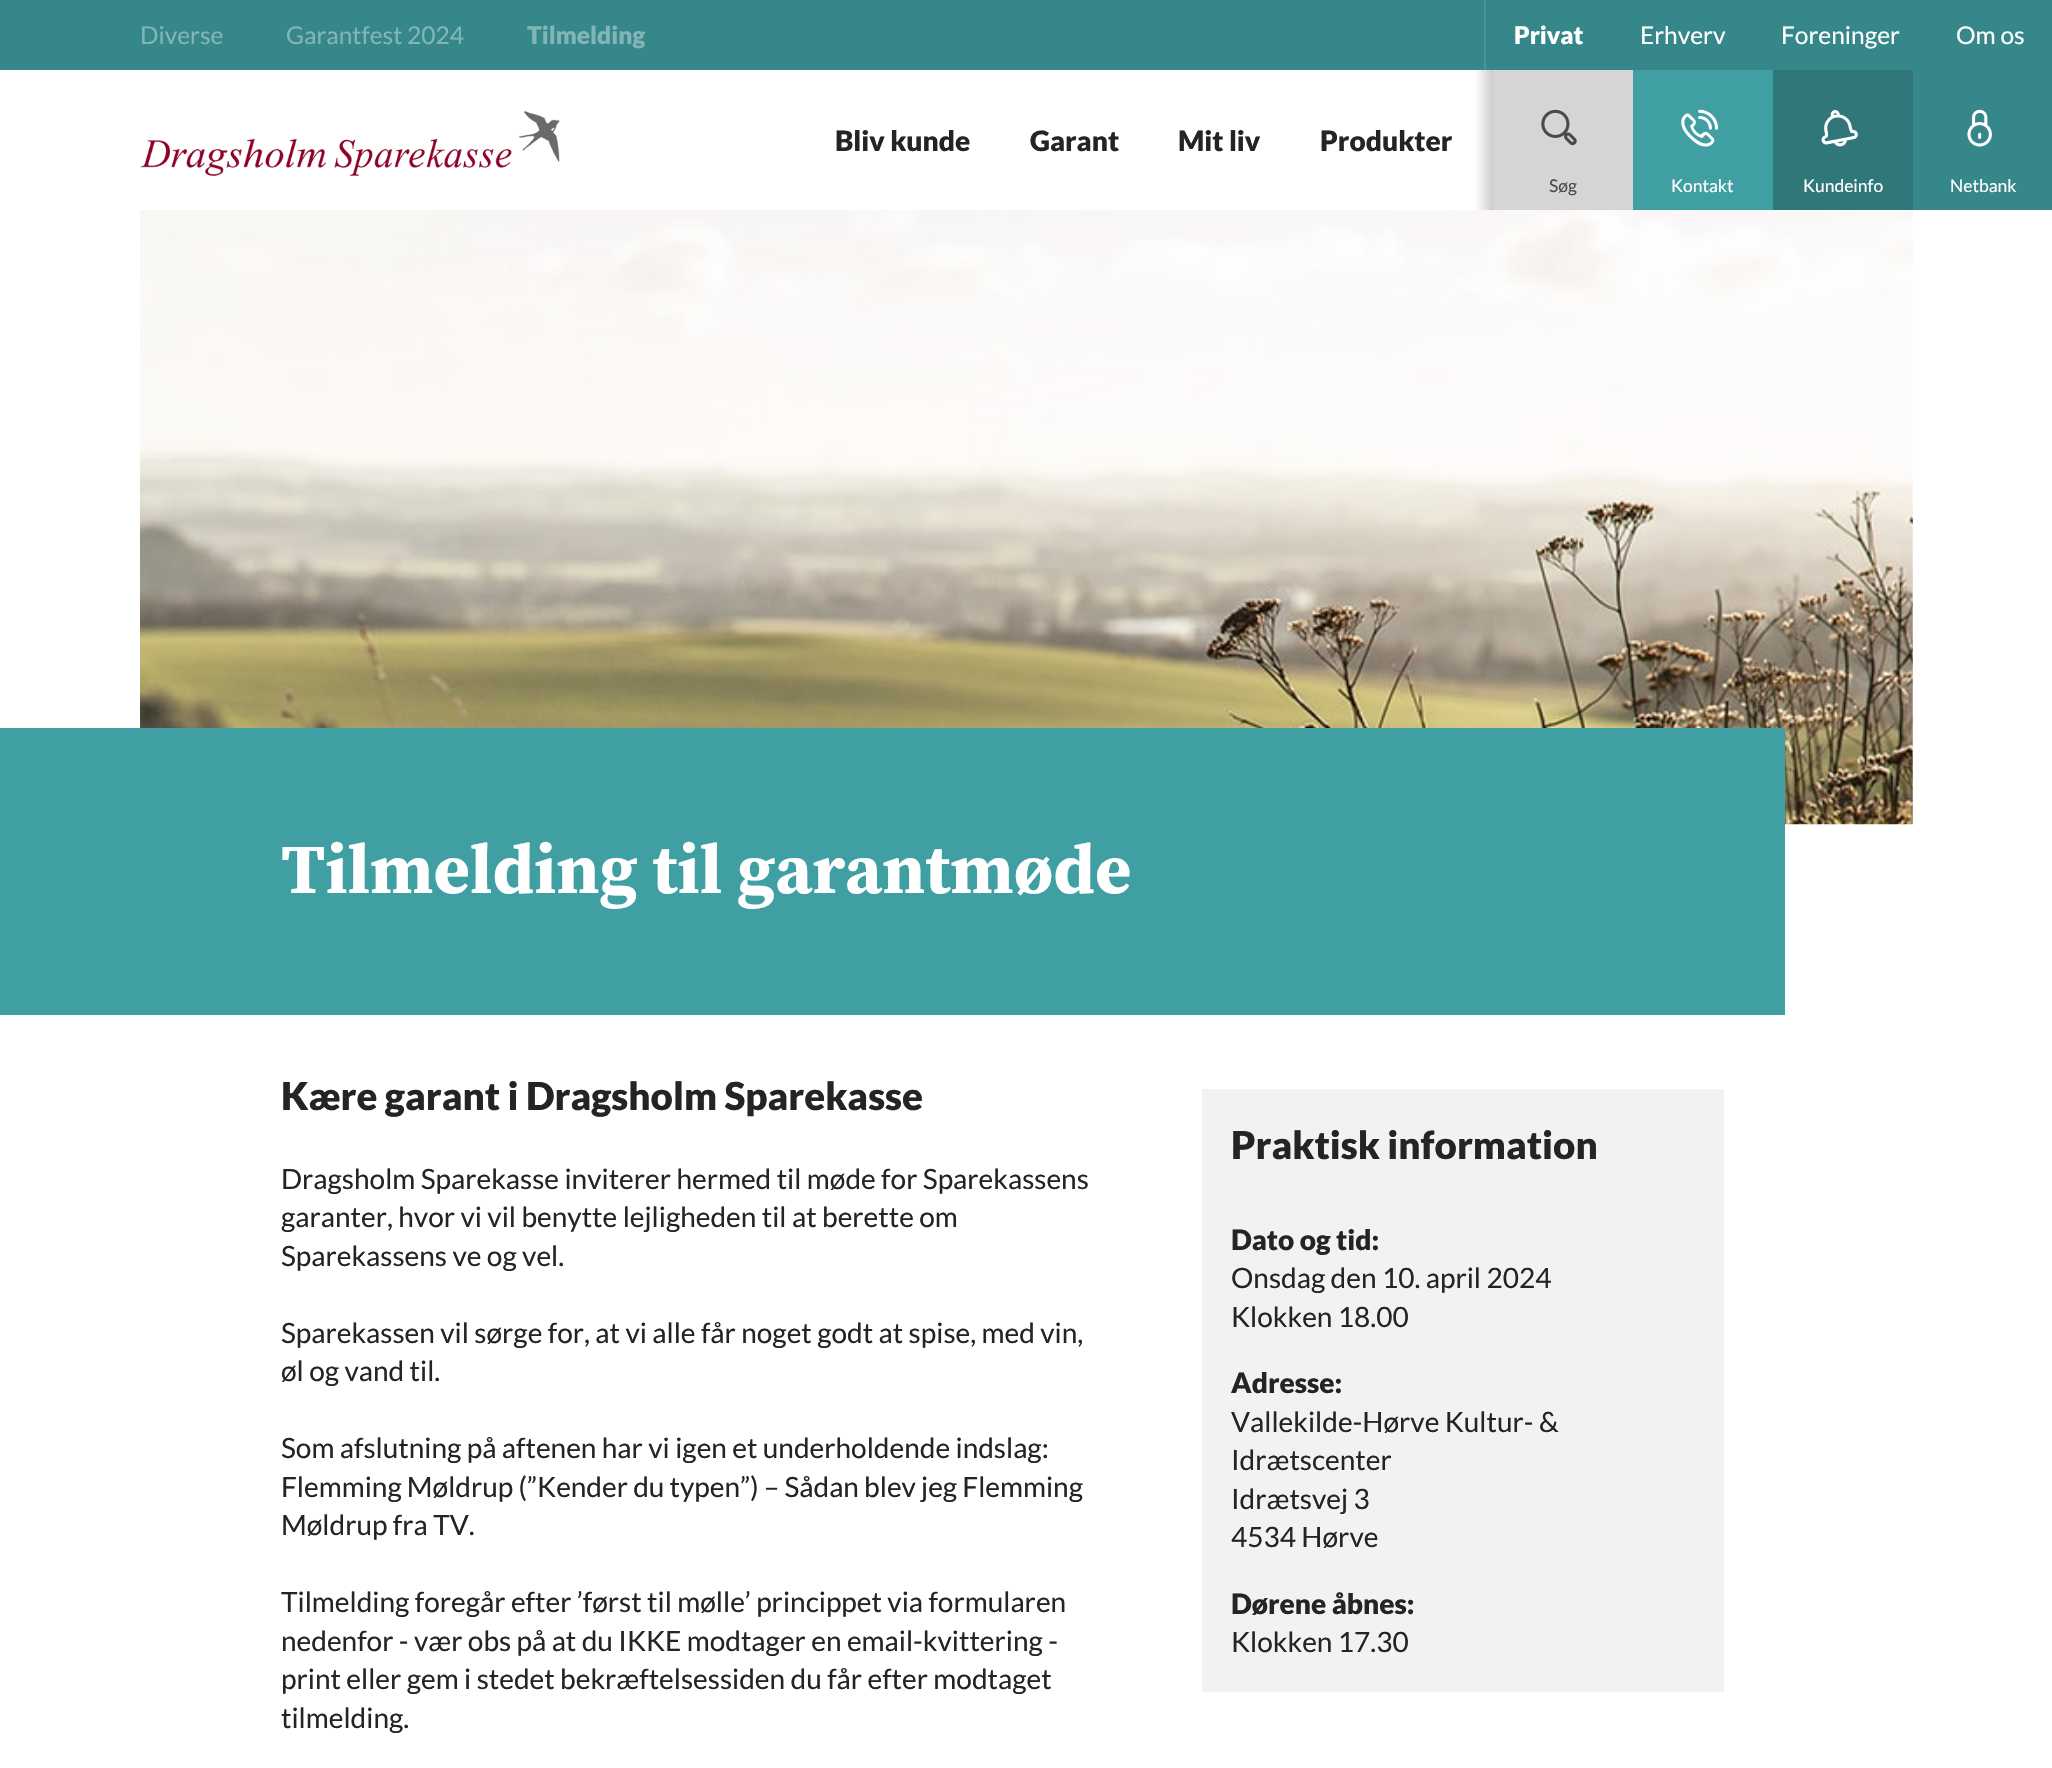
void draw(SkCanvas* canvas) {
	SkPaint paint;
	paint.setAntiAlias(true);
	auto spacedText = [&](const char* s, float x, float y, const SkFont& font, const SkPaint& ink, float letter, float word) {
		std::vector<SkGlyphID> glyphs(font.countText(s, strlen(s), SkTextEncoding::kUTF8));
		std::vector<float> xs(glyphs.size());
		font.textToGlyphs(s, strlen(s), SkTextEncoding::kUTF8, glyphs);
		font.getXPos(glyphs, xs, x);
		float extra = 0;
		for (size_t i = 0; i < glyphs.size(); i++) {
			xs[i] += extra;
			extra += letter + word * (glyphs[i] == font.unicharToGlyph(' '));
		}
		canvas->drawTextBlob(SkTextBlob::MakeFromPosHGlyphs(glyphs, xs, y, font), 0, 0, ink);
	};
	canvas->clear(0xffffffff);
	paint.setColor(0xff36878a);
	canvas->drawRect(SkRect::MakeXYWH(0, 0, 2052, 70), paint);
	SkFont f1(fontMgr->matchFamilyStyle("Lato", SkFontStyle::Normal()), 24.5);
	f1.setSubpixel(true);
	paint.setColor(0xff82b5b6);
	canvas->drawString("Diverse", 140, 44, f1, paint);
	canvas->drawString("Garantfest 2024", 286, 44, f1, paint);
	SkFont f2(fontMgr->matchFamilyStyle("Lato", SkFontStyle(900, SkFontStyle::kNormal_Width, SkFontStyle::kUpright_Slant)), 24.5);
	f2.setSubpixel(true);
	canvas->drawString("Tilmelding", 527, 44, f2, paint);
	paint.setColor(0xff4a9396);
	canvas->drawRect(SkRect::MakeXYWH(1484, 0, 2, 70), paint);
	paint.setColor(0xffffffff);
	canvas->drawString("Privat", 1514, 44, f2, paint);
	canvas->drawString("Erhverv", 1640, 44, f1, paint);
	canvas->drawString("Foreninger", 1781, 44, f1, paint);
	canvas->drawString("Om os", 1956, 44, f1, paint);
	canvas->drawImageRect(SkImages::DeferredFromEncodedData(SkData::MakeFromFileName("img1.png")), SkRect::MakeXYWH(140, 111, 420, 65), SkSamplingOptions());
	SkFont f3(fontMgr->matchFamilyStyle("Lato", SkFontStyle(900, SkFontStyle::kNormal_Width, SkFontStyle::kUpright_Slant)), 28);
	f3.setSubpixel(true);
	paint.setColor(0xff242424);
	canvas->drawString("Bliv kunde", 835, 151, f3, paint);
	canvas->drawString("Garant", 1030, 151, f3, paint);
	canvas->drawString("Mit liv", 1178, 151, f3, paint);
	canvas->drawString("Produkter", 1320, 151, f3, paint);
	{
		const SkColor colors[] = {0xffffffff, 0xffcccccc};
		const float stops[] = {0, 1};
		const SkPoint ends[] = {{1475, 140}, {1493, 140}};
		paint.setShader(SkGradientShader::MakeLinear(ends, colors, stops, 2, SkTileMode::kClamp));
		paint.setAlpha(255);
	}
	canvas->drawRect(SkRect::MakeXYWH(1476, 70, 17, 140), paint);
	paint.setShader(nullptr);
	paint.setColor(0xffd6d4d6);
	canvas->drawRect(SkRect::MakeXYWH(1493, 70, 140, 140), paint);
	canvas->drawImageRect(SkImages::DeferredFromEncodedData(SkData::MakeFromFileName("img2.png")), SkRect::MakeXYWH(1541, 109, 36, 37), SkSamplingOptions());
	SkFont f4(fontMgr->matchFamilyStyle("Lato", SkFontStyle::Normal()), 17.5);
	f4.setSubpixel(true);
	paint.setColor(0xff4a4a4a);
	canvas->drawString("Søg", 1549, 192, f4, paint);
	paint.setColor(0xff409fa2);
	canvas->drawRect(SkRect::MakeXYWH(1633, 70, 140, 140), paint);
	canvas->drawImageRect(SkImages::DeferredFromEncodedData(SkData::MakeFromFileName("img3.png")), SkRect::MakeXYWH(1681, 109, 38, 38), SkSamplingOptions());
	paint.setColor(0xffffffff);
	canvas->drawString("Kontakt", 1671, 192, f4, paint);
	paint.setColor(0xff30777a);
	canvas->drawRect(SkRect::MakeXYWH(1773, 70, 140, 140), paint);
	canvas->drawImageRect(SkImages::DeferredFromEncodedData(SkData::MakeFromFileName("img4.png")), SkRect::MakeXYWH(1821, 110, 37, 37), SkSamplingOptions());
	paint.setColor(0xffffffff);
	canvas->drawString("Kundeinfo", 1803, 192, f4, paint);
	paint.setColor(0xff36878a);
	canvas->drawRect(SkRect::MakeXYWH(1913, 70, 139, 140), paint);
	canvas->drawImageRect(SkImages::DeferredFromEncodedData(SkData::MakeFromFileName("img5.png")), SkRect::MakeXYWH(1967, 109, 25, 38), SkSamplingOptions());
	paint.setColor(0xffffffff);
	canvas->drawString("Netbank", 1950, 192, f4, paint);
	canvas->drawImageRect(SkImages::DeferredFromEncodedData(SkData::MakeFromFileName("img6.png")), SkRect::MakeXYWH(140, 210, 1773, 615), SkSamplingOptions());
	paint.setColor(0xff409fa2);
	canvas->drawRect(SkRect::MakeXYWH(0, 728, 1785, 287), paint);
	SkFont f5(fontMgr->matchFamilyStyle("Source Serif Pro", SkFontStyle::Bold()), 70);
	f5.setSubpixel(true);
	paint.setColor(0xffffffff);
	canvas->drawString("Tilmelding til garantmøde", 281, 893, f5, paint);
	SkFont f6(fontMgr->matchFamilyStyle("Lato", SkFontStyle(900, SkFontStyle::kNormal_Width, SkFontStyle::kUpright_Slant)), 38.5);
	f6.setSubpixel(true);
	paint.setColor(0xff242424);
	canvas->drawString("Kære garant i Dragsholm Sparekasse", 281, 1110, f6, paint);
	SkFont f7(fontMgr->matchFamilyStyle("Lato", SkFontStyle::Normal()), 28);
	f7.setSubpixel(true);
	canvas->drawString("Dragsholm Sparekasse inviterer hermed til møde for Sparekassens", 281, 1189, f7, paint);
	canvas->drawString("garanter, hvor vi vil benytte lejligheden til at berette om", 281, 1227, f7, paint);
	canvas->drawString("Sparekassens ve og vel.", 281, 1266, f7, paint);
	canvas->drawString("Sparekassen vil sørge for, at vi alle får noget godt at spise, med vin,", 281, 1343, f7, paint);
	canvas->drawString("øl og vand til.", 281, 1381, f7, paint);
	canvas->drawString("Som afslutning på aftenen har vi igen et underholdende indslag:", 281, 1458, f7, paint);
	spacedText("Flemming Møldrup (”Kender du typen”) – Sådan blev jeg Flemming", 281, 1497, f7, paint, 0, -0.25);
	canvas->drawString("Møldrup fra TV.", 281, 1535, f7, paint);
	canvas->drawString("Tilmelding foregår efter ’først til mølle’ princippet via formularen", 281, 1612, f7, paint);
	canvas->drawString("nedenfor - vær obs på at du IKKE modtager en email-kvittering -", 281, 1651, f7, paint);
	canvas->drawString("print eller gem i stedet bekræftelsessiden du får efter modtaget", 281, 1689, f7, paint);
	canvas->drawString("tilmelding.", 281, 1728, f7, paint);
	paint.setColor(0xfff2f2f2);
	canvas->drawRect(SkRect::MakeXYWH(1202, 1089, 522, 603), paint);
	paint.setColor(0xff242424);
	canvas->drawString("Praktisk information", 1231, 1159, f6, paint);
	canvas->drawString("Dato og tid:", 1231, 1250, f3, paint);
	canvas->drawString("Onsdag den 10. april 2024", 1231, 1288, f7, paint);
	canvas->drawString("Klokken 18.00", 1231, 1327, f7, paint);
	canvas->drawString("Adresse:", 1231, 1393, f3, paint);
	canvas->drawString("Vallekilde-Hørve Kultur- &", 1231, 1432, f7, paint);
	canvas->drawString("Idrætscenter", 1231, 1470, f7, paint);
	canvas->drawString("Idrætsvej 3", 1231, 1509, f7, paint);
	canvas->drawString("4534 Hørve", 1231, 1547, f7, paint);
	canvas->drawString("Dørene åbnes:", 1231, 1614, f3, paint);
	canvas->drawString("Klokken 17.30", 1231, 1652, f7, paint);
}
